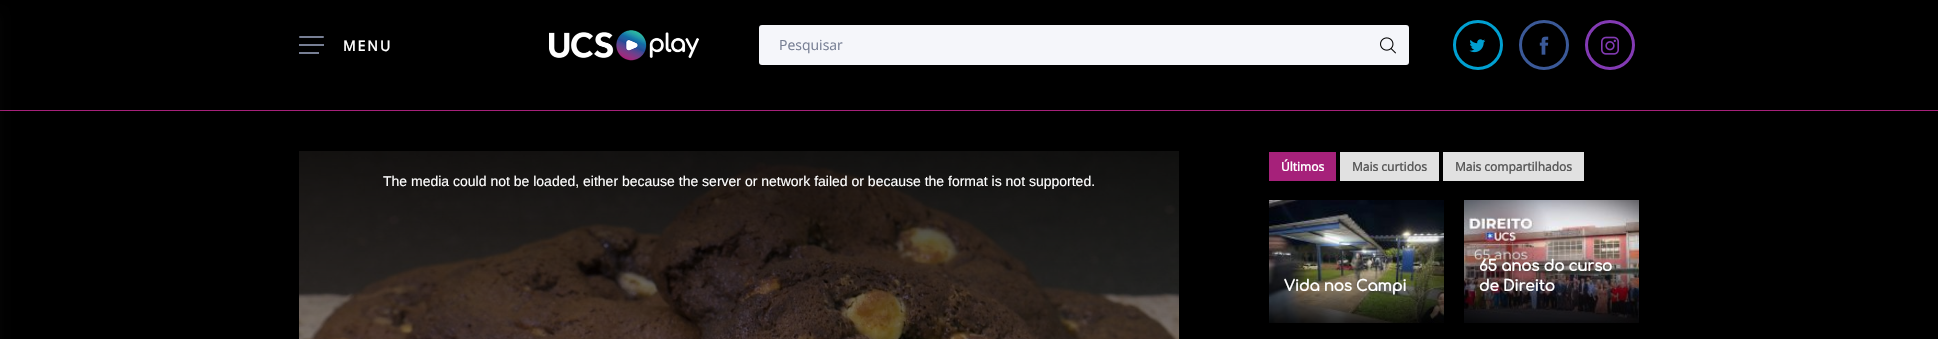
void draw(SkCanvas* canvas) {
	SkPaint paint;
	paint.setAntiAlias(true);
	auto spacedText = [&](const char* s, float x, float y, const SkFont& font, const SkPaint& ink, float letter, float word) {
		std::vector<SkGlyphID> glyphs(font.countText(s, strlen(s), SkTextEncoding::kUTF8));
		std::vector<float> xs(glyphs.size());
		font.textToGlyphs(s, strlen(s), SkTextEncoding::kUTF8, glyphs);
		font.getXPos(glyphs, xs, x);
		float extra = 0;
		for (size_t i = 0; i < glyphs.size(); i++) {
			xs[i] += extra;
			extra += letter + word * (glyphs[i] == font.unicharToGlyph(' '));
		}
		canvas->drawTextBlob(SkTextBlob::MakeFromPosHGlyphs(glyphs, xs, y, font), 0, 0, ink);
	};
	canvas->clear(0xff000000);
	paint.setColor(0xffa6217a);
	canvas->drawRect(SkRect::MakeXYWH(0, 110, 1938, 1), paint);
	paint.setColor(0x331e1e1e);
	paint.setMaskFilter(SkMaskFilter::MakeBlur(kNormal_SkBlurStyle, 5));
	canvas->drawRect(SkRect::MakeXYWH(-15, 15, 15, 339), paint);
	paint.setMaskFilter(nullptr);
	paint.setColor(0xff777f94);
	canvas->drawRoundRect(SkRect::MakeXYWH(299, 36, 25, 2), 1, 1, paint);
	canvas->drawRect(SkRect::MakeXYWH(299, 44, 25, 2), paint);
	canvas->drawRect(SkRect::MakeXYWH(299, 52, 20, 2), paint);
	SkFont f1(fontMgr->matchFamilyStyle("Open Sans", SkFontStyle::Bold()), 14);
	f1.setSubpixel(true);
	paint.setColor(0xffffffff);
	spacedText("MENU", 343, 51, f1, paint, 2, 0);
	canvas->drawImageRect(SkImages::DeferredFromEncodedData(SkData::MakeFromFileName("img1.png")), SkRect::MakeXYWH(549, 30, 150, 31), SkSamplingOptions());
	paint.setColor(0xfff5f6fa);
	canvas->drawRoundRect(SkRect::MakeXYWH(759, 25, 650, 40), 3, 3, paint);
	SkFont f2(fontMgr->matchFamilyStyle("Open Sans", SkFontStyle::Normal()), 14);
	f2.setSubpixel(true);
	paint.setColor(0xff777f94);
	canvas->drawString("Pesquisar", 779, 50, f2, paint);
	canvas->drawImageRect(SkImages::DeferredFromEncodedData(SkData::MakeFromFileName("img2.png")), SkRect::MakeXYWH(1380, 37, 16, 17), SkSamplingOptions());
	paint.setStroke(true);
	paint.setStrokeWidth(3);
	paint.setColor(0xff00a0d1);
	canvas->drawCircle(1478, 45, 23.5, paint);
	canvas->drawImageRect(SkImages::DeferredFromEncodedData(SkData::MakeFromFileName("img3.png")), SkRect::MakeXYWH(1469, 39, 17, 14), SkSamplingOptions());
	paint.setColor(0xff3b5998);
	canvas->drawCircle(1544, 45, 23.5, paint);
	canvas->drawImageRect(SkImages::DeferredFromEncodedData(SkData::MakeFromFileName("img4.png")), SkRect::MakeXYWH(1539, 36, 10, 19), SkSamplingOptions());
	paint.setColor(0xff833ab4);
	canvas->drawCircle(1610, 45, 23.5, paint);
	canvas->drawImageRect(SkImages::DeferredFromEncodedData(SkData::MakeFromFileName("img5.png")), SkRect::MakeXYWH(1601, 36, 18, 19), SkSamplingOptions());
	canvas->drawImageRect(SkImages::DeferredFromEncodedData(SkData::MakeFromFileName("img6.png")), SkRect::MakeXYWH(299, 151, 880, 188), SkSamplingOptions());
	SkFont f3(fontMgr->matchFamilyStyle("Liberation Sans", SkFontStyle::Normal()), 14);
	f3.setSubpixel(true);
	paint.setStroke(false);
	paint.setColor(0xffffffff);
	canvas->drawString("The media could not be loaded, either because the server or network failed or because the format is not supported.", 383, 186, f3, paint);
	paint.setColor(0xffa6217a);
	canvas->drawRect(SkRect::MakeXYWH(1269, 152, 67, 29), paint);
	SkFont f4(fontMgr->matchFamilyStyle("Open Sans", SkFontStyle::Bold()), 12);
	f4.setSubpixel(true);
	paint.setColor(0xffffffff);
	canvas->drawString("Últimos", 1281, 171, f4, paint);
	paint.setColor(0xffe1e1e1);
	canvas->drawRect(SkRect::MakeXYWH(1340, 152, 99, 29), paint);
	paint.setColor(0xff5a5a5a);
	canvas->drawString("Mais curtidos", 1352, 171, f4, paint);
	paint.setColor(0xffe1e1e1);
	canvas->drawRect(SkRect::MakeXYWH(1443, 152, 141, 29), paint);
	paint.setColor(0xff5a5a5a);
	canvas->drawString("Mais compartilhados", 1455, 171, f4, paint);
	canvas->drawImageRect(SkImages::DeferredFromEncodedData(SkData::MakeFromFileName("img7.png")), SkRect::MakeXYWH(1269, 200, 175, 123), SkSamplingOptions());
	SkFont f5(fontMgr->matchFamilyStyle("Comfortaa", SkFontStyle::Bold()), 15);
	f5.setSubpixel(true);
	paint.setColor(0xffffffff);
	spacedText("Vida nos Campi", 1284, 291, f5, paint, -0.1, 0);
	canvas->drawImageRect(SkImages::DeferredFromEncodedData(SkData::MakeFromFileName("img8.png")), SkRect::MakeXYWH(1464, 200, 175, 123), SkSamplingOptions());
	spacedText("65 anos do curso", 1479, 271, f5, paint, -0.1, 0);
	spacedText("de Direito", 1479, 291, f5, paint, -0.1, 0);
}
